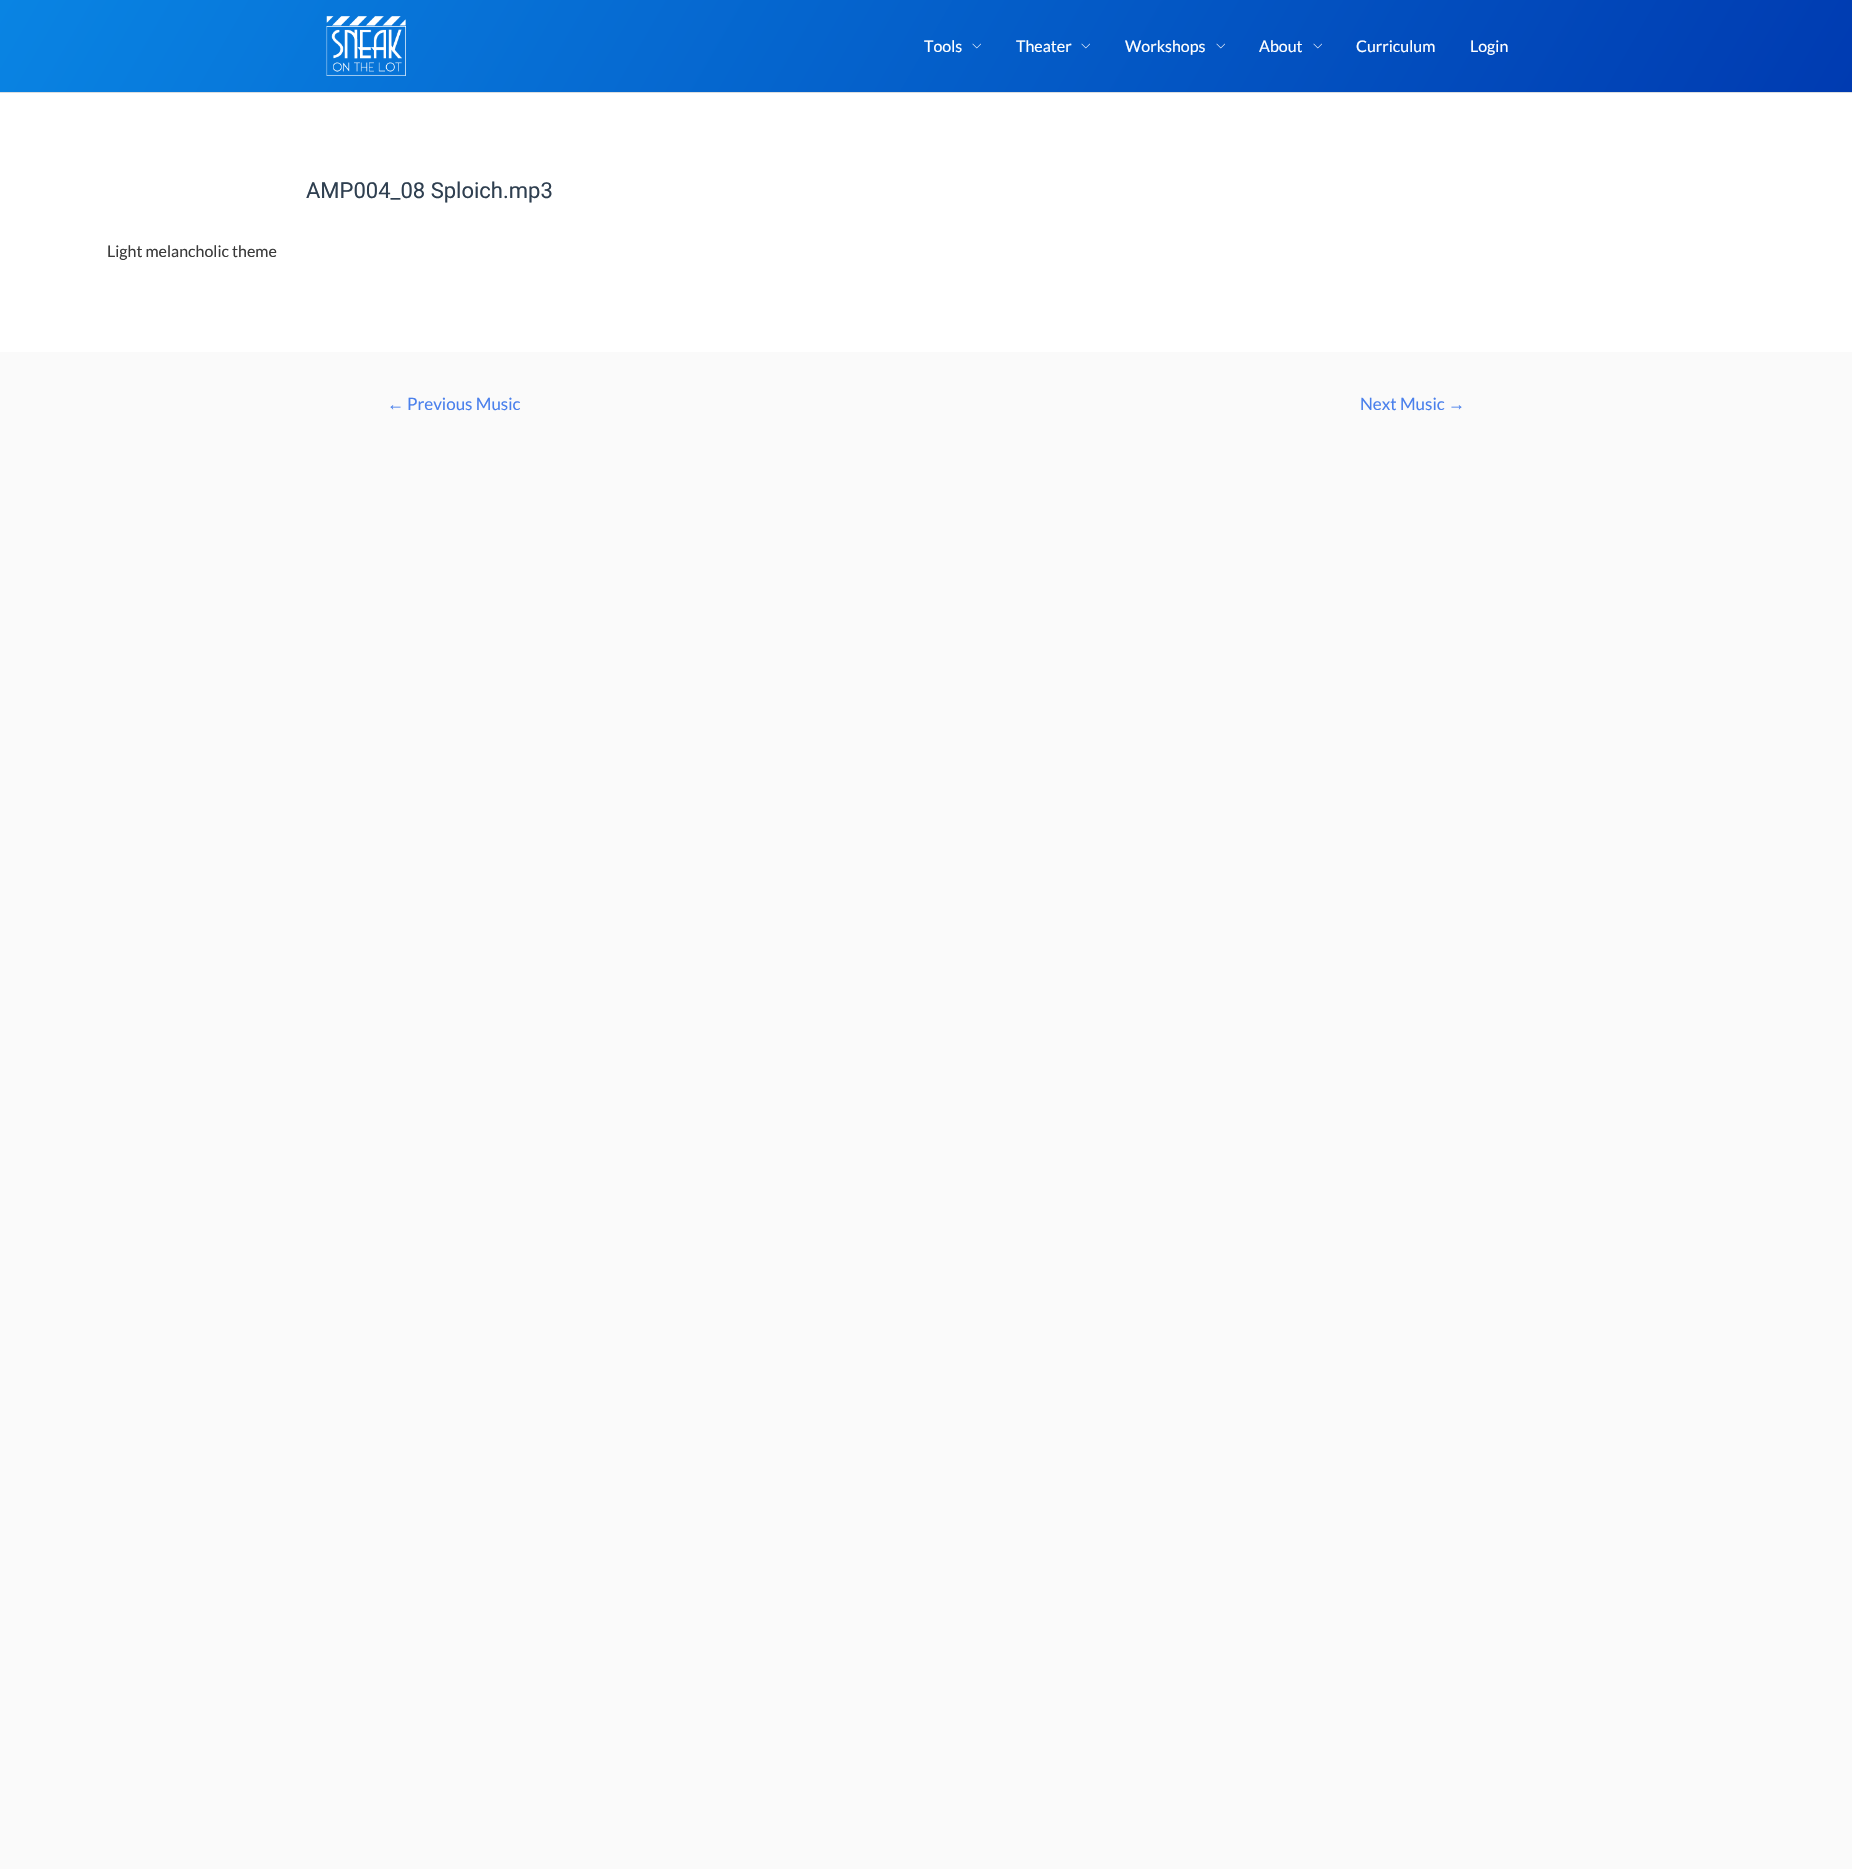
void draw(SkCanvas* canvas) {
	SkPaint paint;
	paint.setAntiAlias(true);
	canvas->clear(0xfffafafa);
	{
		const SkColor colors[] = {0xff0984e3, 0xff003bb1};
		const float stops[] = {0, 1};
		const SkPoint ends[] = {{212, -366}, {1640, 458}};
		paint.setShader(SkGradientShader::MakeLinear(ends, colors, stops, 2, SkTileMode::kClamp));
		paint.setAlpha(255);
	}
	canvas->drawRect(SkRect::MakeXYWH(0, 0, 1852, 92), paint);
	paint.setShader(nullptr);
	paint.setColor(0xffdbdee0);
	canvas->drawRect(SkRect::MakeXYWH(0, 92, 1852, 1), paint);
	canvas->drawImageRect(SkImages::DeferredFromEncodedData(SkData::MakeFromFileName("img1.png")), SkRect::MakeXYWH(326, 16, 80, 60), SkSamplingOptions());
	SkFont f1(fontMgr->matchFamilyStyle("Lato", SkFontStyle::Normal()), 16);
	f1.setSubpixel(true);
	paint.setColor(0xffffffff);
	canvas->drawString("Tools", 924, 52, f1, paint);
	canvas->drawImageRect(SkImages::DeferredFromEncodedData(SkData::MakeFromFileName("img2.png")), SkRect::MakeXYWH(972, 43, 9, 6), SkSamplingOptions());
	canvas->drawString("Theater", 1016, 52, f1, paint);
	canvas->drawImageRect(SkImages::DeferredFromEncodedData(SkData::MakeFromFileName("img3.png")), SkRect::MakeXYWH(1081, 43, 9, 6), SkSamplingOptions());
	canvas->drawString("Workshops", 1125, 52, f1, paint);
	canvas->drawImageRect(SkImages::DeferredFromEncodedData(SkData::MakeFromFileName("img4.png")), SkRect::MakeXYWH(1216, 43, 9, 6), SkSamplingOptions());
	canvas->drawString("About", 1259, 52, f1, paint);
	canvas->drawImageRect(SkImages::DeferredFromEncodedData(SkData::MakeFromFileName("img5.png")), SkRect::MakeXYWH(1313, 43, 9, 6), SkSamplingOptions());
	canvas->drawString("Curriculum", 1356, 52, f1, paint);
	canvas->drawString("Login", 1470, 52, f1, paint);
	canvas->drawRect(SkRect::MakeXYWH(0, 93, 1852, 259), paint);
	SkFont f2(fontMgr->matchFamilyStyle("Roboto", SkFontStyle::Normal()), 22);
	f2.setSubpixel(true);
	paint.setColor(0xff2f3f50);
	canvas->drawString("AMP004_08 Sploich.mp3", 306, 198, f2, paint);
	paint.setColor(0xff3a3a3a);
	canvas->drawString("Light melancholic theme", 107, 257, f1, paint);
	SkFont f3(fontMgr->matchFamilyStyle("Liberation Sans", SkFontStyle::Normal()), 17);
	f3.setSubpixel(true);
	paint.setColor(0xff4a80ec);
	canvas->drawString("←", 387, 410, f3, paint);
	SkFont f4(fontMgr->matchFamilyStyle("Lato", SkFontStyle::Normal()), 17);
	f4.setSubpixel(true);
	canvas->drawString("Previous Music", 407, 410, f4, paint);
	canvas->drawString("Next Music", 1360, 410, f4, paint);
	canvas->drawString("→", 1448, 410, f3, paint);
}
